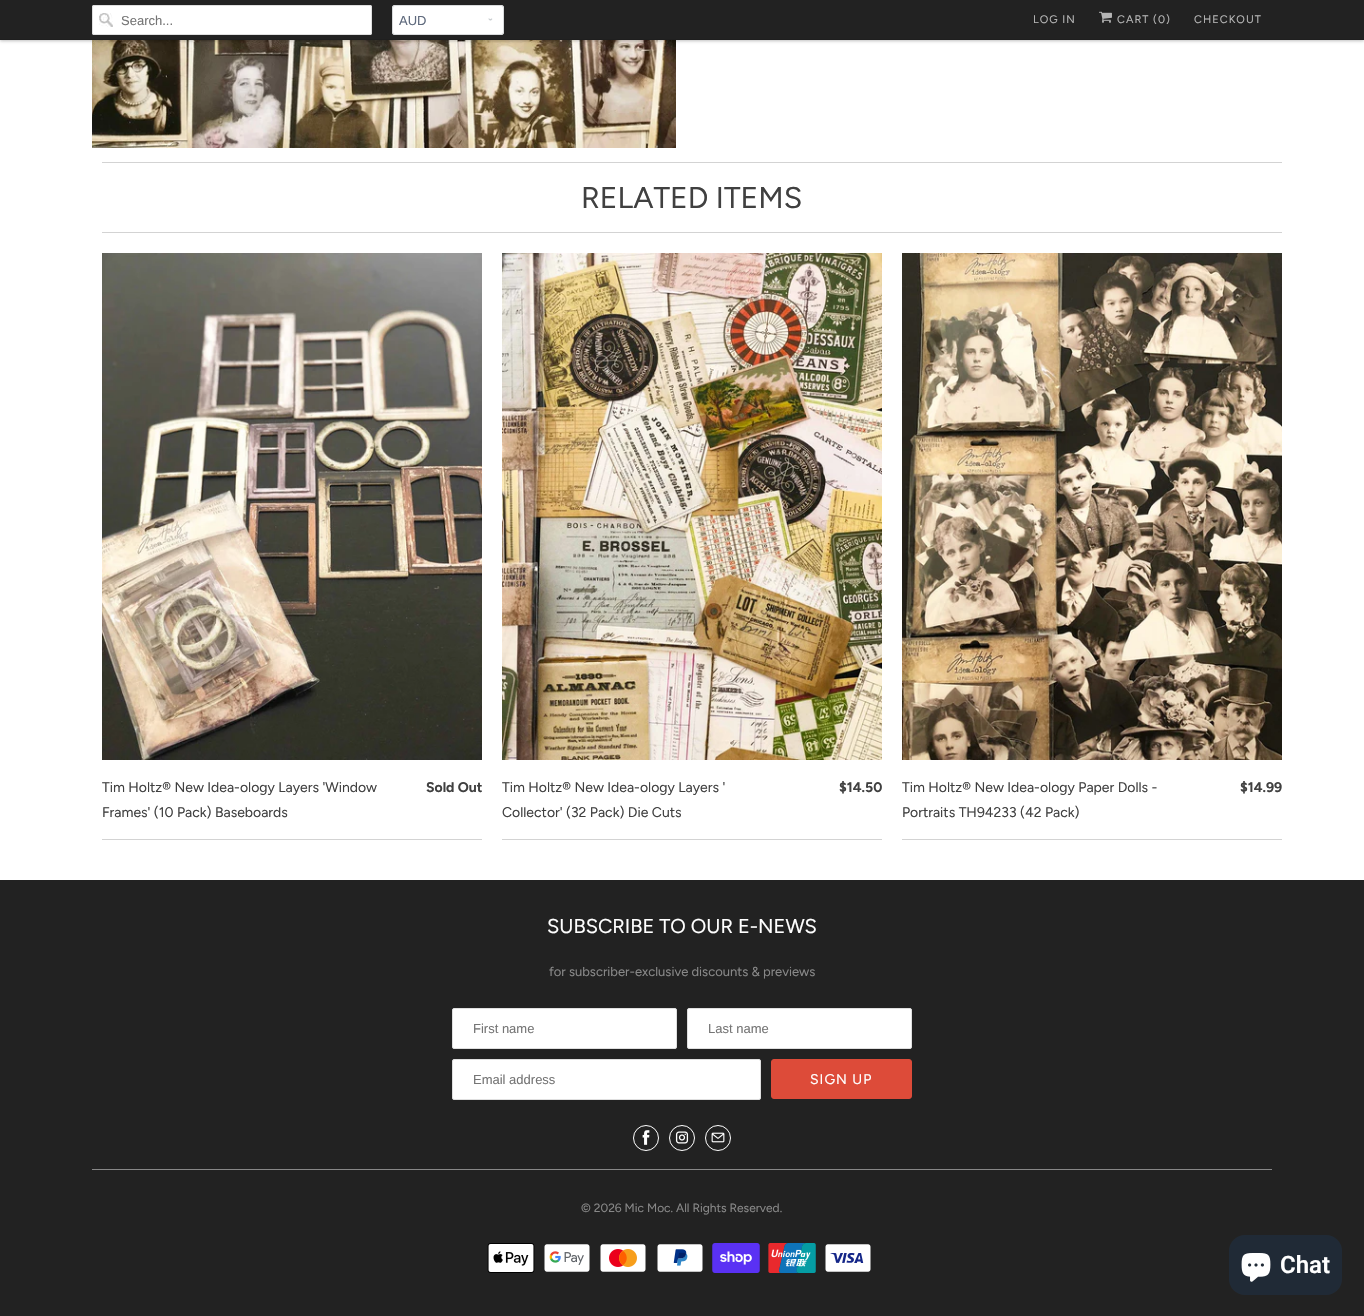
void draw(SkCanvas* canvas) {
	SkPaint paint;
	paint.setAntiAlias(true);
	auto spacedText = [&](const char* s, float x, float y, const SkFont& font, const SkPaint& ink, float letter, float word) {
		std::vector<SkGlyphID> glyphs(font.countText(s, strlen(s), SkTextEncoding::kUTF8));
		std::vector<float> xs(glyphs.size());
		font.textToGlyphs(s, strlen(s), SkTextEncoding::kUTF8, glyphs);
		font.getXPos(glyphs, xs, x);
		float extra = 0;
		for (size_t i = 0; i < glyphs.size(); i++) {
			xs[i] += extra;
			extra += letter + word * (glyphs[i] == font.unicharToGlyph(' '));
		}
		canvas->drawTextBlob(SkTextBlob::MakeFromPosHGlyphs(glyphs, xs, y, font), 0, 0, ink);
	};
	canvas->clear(0xffffffff);
	canvas->drawImageRect(SkImages::DeferredFromEncodedData(SkData::MakeFromFileName("img4.png")), SkRect::MakeXYWH(92, 40, 584, 108), SkSamplingOptions());
	paint.setColor(0x40000000);
	paint.setMaskFilter(SkMaskFilter::MakeBlur(kNormal_SkBlurStyle, 1.5));
	canvas->drawRect(SkRect::MakeXYWH(0, 1, 1364, 40), paint);
	paint.setMaskFilter(nullptr);
	paint.setColor(0xff222222);
	canvas->drawRect(SkRect::MakeXYWH(0, 0, 1364, 39), paint);
	paint.setColor(0xff1f1f1f);
	canvas->drawRect(SkRect::MakeXYWH(0, 39, 1364, 1), paint);
	paint.setColor(0xffffffff);
	canvas->drawRoundRect(SkRect::MakeXYWH(92, 5, 280, 30), 2, 2, paint);
	canvas->drawImageRect(SkImages::DeferredFromEncodedData(SkData::MakeFromFileName("img1.png")), SkRect::MakeXYWH(99, 13, 14, 14), SkSamplingOptions());
	paint.setStroke(true);
	paint.setStrokeWidth(1);
	paint.setColor(0xffdfdfdf);
	canvas->drawRoundRect(SkRect::MakeXYWH(92.5, 5.5, 279, 29), 1.5, 1.5, paint);
	SkFont f1(fontMgr->matchFamilyStyle("Liberation Sans", SkFontStyle::Normal()), 13);
	f1.setSubpixel(true);
	paint.setStroke(false);
	paint.setColor(0xff757575);
	canvas->drawString("Search...", 121, 25, f1, paint);
	paint.setColor(0xffffffff);
	canvas->drawRoundRect(SkRect::MakeXYWH(392, 5, 112, 30), 3, 3, paint);
	canvas->drawImageRect(SkImages::DeferredFromEncodedData(SkData::MakeFromFileName("img2.png")), SkRect::MakeXYWH(488, 18, 5, 3), SkSamplingOptions());
	paint.setStroke(true);
	paint.setColor(0xffd9dbdc);
	canvas->drawRoundRect(SkRect::MakeXYWH(392.5, 5.5, 111, 29), 2.5, 2.5, paint);
	paint.setStroke(false);
	paint.setColor(0xff5f6a7d);
	canvas->drawString("AUD", 399, 25, f1, paint);
	SkFont f2(fontMgr->matchFamilyStyle("Figtree", SkFontStyle::Normal()), 11);
	f2.setSubpixel(true);
	paint.setColor(0xffb6b6b6);
	spacedText("LOG IN", 1033, 23, f2, paint, 1, 0);
	canvas->drawImageRect(SkImages::DeferredFromEncodedData(SkData::MakeFromFileName("img3.png")), SkRect::MakeXYWH(1099, 11, 13, 12), SkSamplingOptions());
	spacedText("CART (0)", 1117, 23, f2, paint, 1, 0);
	spacedText("CHECKOUT", 1194, 23, f2, paint, 1, 0);
	paint.setColor(0xffd3d3d3);
	canvas->drawRect(SkRect::MakeXYWH(102, 162, 1180, 1), paint);
	canvas->drawRect(SkRect::MakeXYWH(102, 232, 1180, 1), paint);
	SkFont f3(fontMgr->matchFamilyStyle("Figtree", SkFontStyle::Normal()), 30);
	f3.setSubpixel(true);
	paint.setColor(0xff404040);
	canvas->drawString("RELATED ITEMS", 581, 208, f3, paint);
	paint.setColor(0xffd3d3d3);
	canvas->drawRect(SkRect::MakeXYWH(102, 839, 380, 1), paint);
	canvas->drawImageRect(SkImages::DeferredFromEncodedData(SkData::MakeFromFileName("img5.png")), SkRect::MakeXYWH(102, 253, 380, 507), SkSamplingOptions());
	SkFont f4(fontMgr->matchFamilyStyle("Figtree", SkFontStyle::Normal()), 14);
	f4.setSubpixel(true);
	paint.setColor(0xff404040);
	canvas->drawString("Tim Holtz® New Idea-ology Layers 'Window", 102, 792, f4, paint);
	canvas->drawString("Frames' (10 Pack) Baseboards", 102, 817, f4, paint);
	SkFont f5(fontMgr->matchFamilyStyle("Figtree", SkFontStyle::Bold()), 14);
	f5.setSubpixel(true);
	canvas->drawString("Sold Out", 426, 792, f5, paint);
	paint.setColor(0xffd3d3d3);
	canvas->drawRect(SkRect::MakeXYWH(502, 839, 380, 1), paint);
	canvas->drawImageRect(SkImages::DeferredFromEncodedData(SkData::MakeFromFileName("img6.png")), SkRect::MakeXYWH(502, 253, 380, 507), SkSamplingOptions());
	paint.setColor(0xff404040);
	canvas->drawString("Tim Holtz® New Idea-ology Layers '", 502, 792, f4, paint);
	canvas->drawString("Collector' (32 Pack) Die Cuts", 502, 817, f4, paint);
	canvas->drawString("$14.50", 839, 792, f5, paint);
	paint.setColor(0xffd3d3d3);
	canvas->drawRect(SkRect::MakeXYWH(902, 839, 380, 1), paint);
	canvas->drawImageRect(SkImages::DeferredFromEncodedData(SkData::MakeFromFileName("img7.png")), SkRect::MakeXYWH(902, 253, 380, 507), SkSamplingOptions());
	paint.setColor(0xff404040);
	canvas->drawString("Tim Holtz® New Idea-ology Paper Dolls -", 902, 792, f4, paint);
	canvas->drawString("Portraits TH94233 (42 Pack)", 902, 817, f4, paint);
	canvas->drawString("$14.99", 1240, 792, f5, paint);
	paint.setColor(0xff222222);
	canvas->drawRect(SkRect::MakeXYWH(0, 880, 1364, 436), paint);
	SkFont f6(fontMgr->matchFamilyStyle("Figtree", SkFontStyle::Normal()), 20);
	f6.setSubpixel(true);
	paint.setColor(0xffffffff);
	canvas->drawString("SUBSCRIBE TO OUR E-NEWS", 547, 933, f6, paint);
	SkFont f7(fontMgr->matchFamilyStyle("Figtree", SkFontStyle::Normal()), 13);
	f7.setSubpixel(true);
	paint.setColor(0xff888888);
	canvas->drawString("for subscriber-exclusive discounts & previews", 549, 976, f7, paint);
	paint.setColor(0xffffffff);
	canvas->drawRoundRect(SkRect::MakeXYWH(452.5, 1008.5, 224, 40), 1.5, 1.5, paint);
	paint.setStroke(true);
	paint.setColor(0xffdfdfdf);
	canvas->drawRoundRect(SkRect::MakeXYWH(452.5, 1008.5, 224, 40), 1.5, 1.5, paint);
	paint.setStroke(false);
	paint.setColor(0xff757575);
	canvas->drawString("First name", 473, 1033, f1, paint);
	paint.setColor(0xffffffff);
	canvas->drawRoundRect(SkRect::MakeXYWH(687.5, 1008.5, 224, 40), 1.5, 1.5, paint);
	paint.setStroke(true);
	paint.setColor(0xffdfdfdf);
	canvas->drawRoundRect(SkRect::MakeXYWH(687.5, 1008.5, 224, 40), 1.5, 1.5, paint);
	paint.setStroke(false);
	paint.setColor(0xff757575);
	canvas->drawString("Last name", 708, 1033, f1, paint);
	paint.setColor(0xffffffff);
	canvas->drawRoundRect(SkRect::MakeXYWH(452.5, 1059.5, 308, 40), 1.5, 1.5, paint);
	paint.setStroke(true);
	paint.setColor(0xffdfdfdf);
	canvas->drawRoundRect(SkRect::MakeXYWH(452.5, 1059.5, 308, 40), 1.5, 1.5, paint);
	paint.setStroke(false);
	paint.setColor(0xff757575);
	canvas->drawString("Email address", 473, 1084, f1, paint);
	paint.setColor(0xffdd4b39);
	canvas->drawRoundRect(SkRect::MakeXYWH(771.5, 1059.5, 140, 39), 2.5, 2.5, paint);
	paint.setStroke(true);
	canvas->drawRoundRect(SkRect::MakeXYWH(771.5, 1059.5, 140, 39), 2.5, 2.5, paint);
	paint.setStroke(false);
	paint.setColor(0xffffffff);
	spacedText("SIGN UP", 810, 1084, f4, paint, 1, 0);
	paint.setStroke(true);
	canvas->drawCircle(646, 1138, 12.5, paint);
	canvas->drawImageRect(SkImages::DeferredFromEncodedData(SkData::MakeFromFileName("img8.png")), SkRect::MakeXYWH(642, 1130, 8, 15), SkSamplingOptions());
	canvas->drawCircle(682, 1138, 12.5, paint);
	canvas->drawImageRect(SkImages::DeferredFromEncodedData(SkData::MakeFromFileName("img9.png")), SkRect::MakeXYWH(675, 1131, 14, 13), SkSamplingOptions());
	canvas->drawCircle(718, 1138, 12.5, paint);
	canvas->drawImageRect(SkImages::DeferredFromEncodedData(SkData::MakeFromFileName("img10.png")), SkRect::MakeXYWH(711, 1132, 14, 11), SkSamplingOptions());
	paint.setStroke(false);
	paint.setColor(0xff888888);
	canvas->drawRect(SkRect::MakeXYWH(92, 1169, 1180, 1), paint);
	SkFont f8(fontMgr->matchFamilyStyle("Figtree", SkFontStyle::Normal()), 12);
	f8.setSubpixel(true);
	canvas->drawString("© 2026 Mic Moc. All Rights Reserved.", 581, 1212, f8, paint);
	canvas->drawImageRect(SkImages::DeferredFromEncodedData(SkData::MakeFromFileName("img11.png")), SkRect::MakeXYWH(487, 1243, 48, 30), SkSamplingOptions());
	canvas->drawImageRect(SkImages::DeferredFromEncodedData(SkData::MakeFromFileName("img12.png")), SkRect::MakeXYWH(544, 1244, 46, 28), SkSamplingOptions());
	canvas->drawImageRect(SkImages::DeferredFromEncodedData(SkData::MakeFromFileName("img13.png")), SkRect::MakeXYWH(600, 1244, 46, 28), SkSamplingOptions());
	canvas->drawImageRect(SkImages::DeferredFromEncodedData(SkData::MakeFromFileName("img14.png")), SkRect::MakeXYWH(657, 1244, 46, 28), SkSamplingOptions());
	canvas->drawImageRect(SkImages::DeferredFromEncodedData(SkData::MakeFromFileName("img15.png")), SkRect::MakeXYWH(712, 1243, 48, 30), SkSamplingOptions());
	canvas->drawImageRect(SkImages::DeferredFromEncodedData(SkData::MakeFromFileName("img16.png")), SkRect::MakeXYWH(768, 1243, 48, 30), SkSamplingOptions());
	canvas->drawImageRect(SkImages::DeferredFromEncodedData(SkData::MakeFromFileName("img17.png")), SkRect::MakeXYWH(825, 1244, 46, 28), SkSamplingOptions());
	paint.setColor(0xff202a36);
	canvas->drawRoundRect(SkRect::MakeXYWH(1229, 1235, 113, 60), 16, 16, paint);
	canvas->drawImageRect(SkImages::DeferredFromEncodedData(SkData::MakeFromFileName("img18.png")), SkRect::MakeXYWH(1241, 1253, 30, 29), SkSamplingOptions());
	SkFont f9(fontMgr->matchFamilyStyle("Roboto", SkFontStyle(600, SkFontStyle::kNormal_Width, SkFontStyle::kUpright_Slant)), 24);
	f9.setSubpixel(true);
	paint.setColor(0xffffffff);
	canvas->drawString("Chat", 1280, 1273, f9, paint);
}
